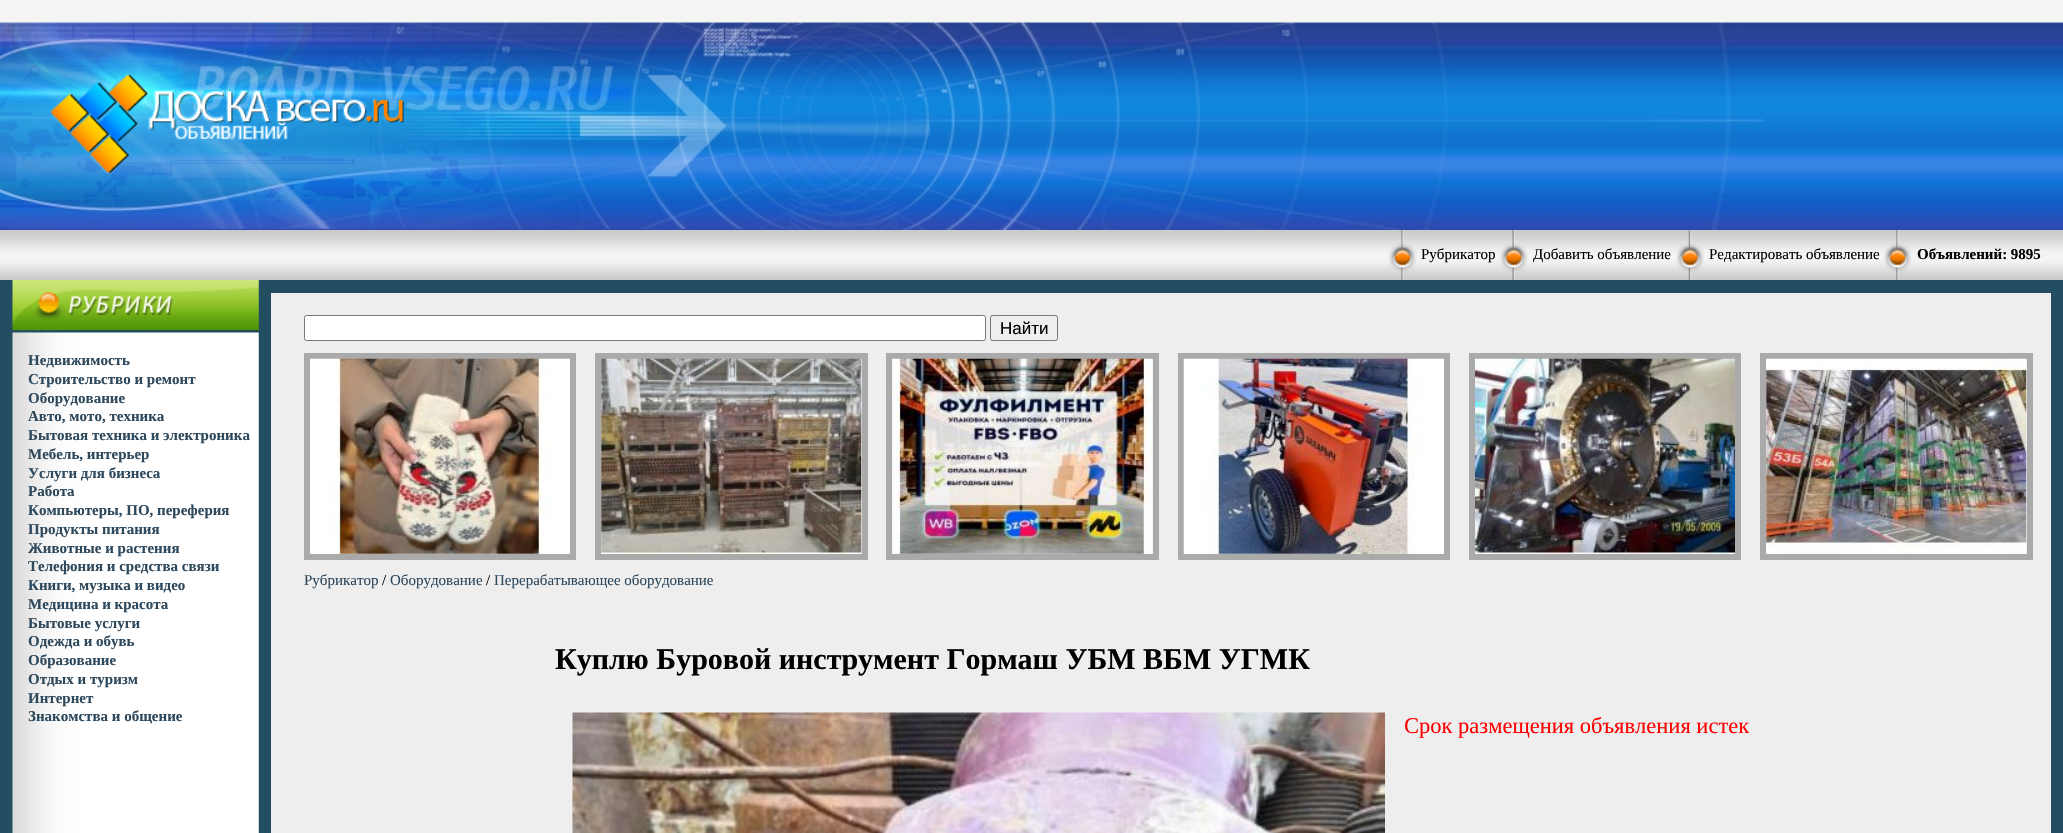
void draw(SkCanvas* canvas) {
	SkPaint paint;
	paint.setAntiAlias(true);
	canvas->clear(0xfff4f4f2);
	canvas->drawImageRect(SkImages::DeferredFromEncodedData(SkData::MakeFromFileName("img1.png")), SkRect::MakeXYWH(0, 22, 2063, 208), SkSamplingOptions());
	canvas->drawImageRect(SkImages::DeferredFromEncodedData(SkData::MakeFromFileName("img2.png")), SkRect::MakeXYWH(50, 73, 354, 101), SkSamplingOptions());
	canvas->drawImageRect(SkImages::DeferredFromEncodedData(SkData::MakeFromFileName("img3.png")), SkRect::MakeXYWH(0, 230, 2063, 50), SkSamplingOptions());
	canvas->drawImageRect(SkImages::DeferredFromEncodedData(SkData::MakeFromFileName("img4.png")), SkRect::MakeXYWH(1388, 230, 29, 50), SkSamplingOptions());
	SkFont f1(fontMgr->matchFamilyStyle("Liberation Serif", SkFontStyle::Normal()), 15);
	f1.setSubpixel(true);
	paint.setColor(0xff000000);
	canvas->drawString("Рубрикатор", 1421, 259, f1, paint);
	canvas->drawImageRect(SkImages::DeferredFromEncodedData(SkData::MakeFromFileName("img5.png")), SkRect::MakeXYWH(1499, 230, 29, 50), SkSamplingOptions());
	canvas->drawString("Добавить объявление", 1533, 259, f1, paint);
	canvas->drawImageRect(SkImages::DeferredFromEncodedData(SkData::MakeFromFileName("img6.png")), SkRect::MakeXYWH(1676, 230, 28, 50), SkSamplingOptions());
	canvas->drawString("Редактировать объявление", 1709, 259, f1, paint);
	canvas->drawImageRect(SkImages::DeferredFromEncodedData(SkData::MakeFromFileName("img4.png")), SkRect::MakeXYWH(1883, 230, 29, 50), SkSamplingOptions());
	SkFont f2(fontMgr->matchFamilyStyle("Liberation Serif", SkFontStyle::Bold()), 15);
	f2.setSubpixel(true);
	canvas->drawString("Объявлений: 9895", 1917, 259, f2, paint);
	paint.setColor(0xff234e61);
	canvas->drawRect(SkRect::MakeXYWH(0, 280, 2063, 553), paint);
	canvas->drawImageRect(SkImages::DeferredFromEncodedData(SkData::MakeFromFileName("img7.png")), SkRect::MakeXYWH(12, 280, 247, 52), SkSamplingOptions());
	canvas->drawImageRect(SkImages::DeferredFromEncodedData(SkData::MakeFromFileName("img8.png")), SkRect::MakeXYWH(12, 332, 247, 501), SkSamplingOptions());
	paint.setColor(0xff2e485c);
	canvas->drawString("Недвижимость", 28, 365, f2, paint);
	canvas->drawString("Строительство и ремонт", 28, 384, f2, paint);
	canvas->drawString("Оборудование", 28, 403, f2, paint);
	canvas->drawString("Авто, мото, техника", 28, 421, f2, paint);
	canvas->drawString("Бытовая техника и электроника", 28, 440, f2, paint);
	canvas->drawString("Мебель, интерьер", 28, 459, f2, paint);
	canvas->drawString("Услуги для бизнеса", 28, 478, f2, paint);
	canvas->drawString("Работа", 28, 496, f2, paint);
	canvas->drawString("Компьютеры, ПО, переферия", 28, 515, f2, paint);
	canvas->drawString("Продукты питания", 28, 534, f2, paint);
	canvas->drawString("Животные и растения", 28, 553, f2, paint);
	canvas->drawString("Телефония и средства связи", 28, 571, f2, paint);
	canvas->drawString("Книги, музыка и видео", 28, 590, f2, paint);
	canvas->drawString("Медицина и красота", 28, 609, f2, paint);
	canvas->drawString("Бытовые услуги", 28, 628, f2, paint);
	canvas->drawString("Одежда и обувь", 28, 646, f2, paint);
	canvas->drawString("Образование", 28, 665, f2, paint);
	canvas->drawString("Отдых и туризм", 28, 684, f2, paint);
	canvas->drawString("Интернет", 28, 703, f2, paint);
	canvas->drawString("Знакомства и общение", 28, 721, f2, paint);
	paint.setColor(0xffeeeeee);
	canvas->drawRect(SkRect::MakeXYWH(271, 293, 1780, 540), paint);
	paint.setColor(0xffffffff);
	canvas->drawRoundRect(SkRect::MakeXYWH(304.5, 315.5, 681, 25), 2, 2, paint);
	paint.setStroke(true);
	paint.setStrokeWidth(1);
	paint.setColor(0xff767676);
	canvas->drawRoundRect(SkRect::MakeXYWH(304.5, 315.5, 681, 25), 2, 2, paint);
	canvas->drawRoundRect(SkRect::MakeXYWH(990.5, 315.5, 67, 25), 2, 2, paint);
	SkFont f3(fontMgr->matchFamilyStyle("Liberation Sans", SkFontStyle::Normal()), 17);
	f3.setSubpixel(true);
	paint.setStroke(false);
	paint.setColor(0xff000000);
	canvas->drawString("Найти", 1000, 334, f3, paint);
	paint.setStroke(true);
	paint.setStrokeWidth(6);
	paint.setColor(0xffaaaaaa);
	canvas->drawRect(SkRect::MakeXYWH(307, 356, 266, 201), paint);
	canvas->drawImageRect(SkImages::DeferredFromEncodedData(SkData::MakeFromFileName("img9.png")), SkRect::MakeXYWH(310, 358, 260, 196), SkSamplingOptions());
	canvas->drawRect(SkRect::MakeXYWH(598, 356, 267, 201), paint);
	canvas->drawImageRect(SkImages::DeferredFromEncodedData(SkData::MakeFromFileName("img10.png")), SkRect::MakeXYWH(601, 358, 261, 196), SkSamplingOptions());
	canvas->drawRect(SkRect::MakeXYWH(889, 356, 267, 201), paint);
	canvas->drawImageRect(SkImages::DeferredFromEncodedData(SkData::MakeFromFileName("img11.png")), SkRect::MakeXYWH(892, 358, 261, 196), SkSamplingOptions());
	canvas->drawRect(SkRect::MakeXYWH(1181, 356, 266, 201), paint);
	canvas->drawImageRect(SkImages::DeferredFromEncodedData(SkData::MakeFromFileName("img12.png")), SkRect::MakeXYWH(1183, 358, 261, 196), SkSamplingOptions());
	canvas->drawRect(SkRect::MakeXYWH(1472, 356, 266, 201), paint);
	canvas->drawImageRect(SkImages::DeferredFromEncodedData(SkData::MakeFromFileName("img13.png")), SkRect::MakeXYWH(1475, 358, 260, 196), SkSamplingOptions());
	canvas->drawRect(SkRect::MakeXYWH(1763, 356, 267, 201), paint);
	canvas->drawImageRect(SkImages::DeferredFromEncodedData(SkData::MakeFromFileName("img14.png")), SkRect::MakeXYWH(1766, 358, 261, 196), SkSamplingOptions());
	paint.setStroke(false);
	paint.setColor(0xff2e485c);
	canvas->drawString("Рубрикатор", 304, 585, f1, paint);
	paint.setColor(0xff000000);
	canvas->drawString("/", 382, 585, f1, paint);
	paint.setColor(0xff2e485c);
	canvas->drawString("Оборудование", 390, 585, f1, paint);
	paint.setColor(0xff000000);
	canvas->drawString("/", 486, 585, f1, paint);
	paint.setColor(0xff2e485c);
	canvas->drawString("Перерабатывающее оборудование", 494, 585, f1, paint);
	SkFont f4(fontMgr->matchFamilyStyle("Liberation Serif", SkFontStyle::Bold()), 30);
	f4.setSubpixel(true);
	paint.setColor(0xff000000);
	canvas->drawString("Куплю Буровой инструмент Гормаш УБМ ВБМ УГМК", 555, 669, f4, paint);
	canvas->drawImageRect(SkImages::DeferredFromEncodedData(SkData::MakeFromFileName("img15.png")), SkRect::MakeXYWH(572, 712, 813, 121), SkSamplingOptions());
	SkFont f5(fontMgr->matchFamilyStyle("Liberation Serif", SkFontStyle::Normal()), 22.5);
	f5.setSubpixel(true);
	paint.setColor(0xffff0000);
	canvas->drawString("Срок размещения объявления истек", 1404, 733, f5, paint);
}
